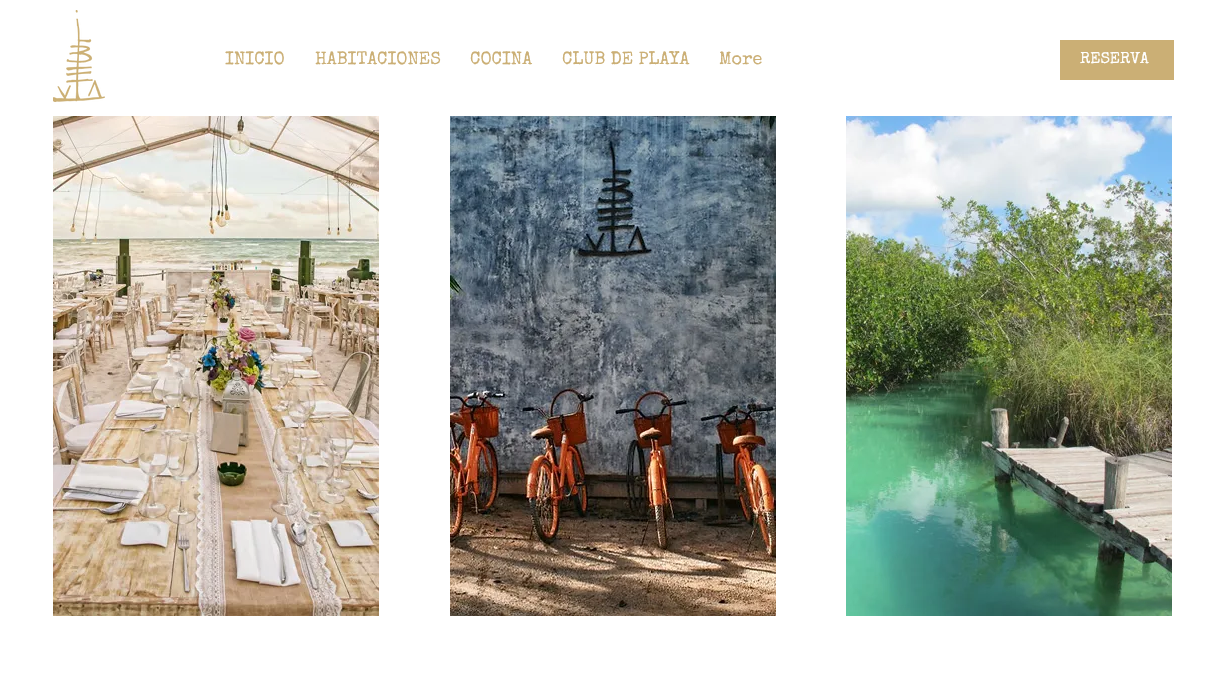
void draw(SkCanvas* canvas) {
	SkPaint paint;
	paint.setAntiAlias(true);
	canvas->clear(0xffffffff);
	canvas->drawImageRect(SkImages::DeferredFromEncodedData(SkData::MakeFromFileName("img1.png")), SkRect::MakeXYWH(53, 10, 52, 92), SkSamplingOptions());
	SkFont f1(fontMgr->matchFamilyStyle("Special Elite", SkFontStyle::Normal()), 18);
	f1.setSubpixel(true);
	paint.setColor(0xffcbaf75);
	canvas->drawString("INICIO", 225, 64, f1, paint);
	canvas->drawString("HABITACIONES", 315, 64, f1, paint);
	canvas->drawString("COCINA", 470, 64, f1, paint);
	canvas->drawString("CLUB DE PLAYA", 562, 64, f1, paint);
	canvas->drawString("More", 719, 64, f1, paint);
	canvas->drawRect(SkRect::MakeXYWH(1060, 40, 114, 40), paint);
	canvas->save();
	canvas->clipRect(SkRect::MakeXYWH(1080, 52, 69, 16));
	SkFont f2(fontMgr->matchFamilyStyle("Special Elite", SkFontStyle::Normal()), 16);
	f2.setSubpixel(true);
	paint.setColor(0xffffffff);
	canvas->drawString("RESERVA", 1080, 63, f2, paint);
	canvas->restore();
	canvas->drawImageRect(SkImages::DeferredFromEncodedData(SkData::MakeFromFileName("img2.png")), SkRect::MakeXYWH(53, 116, 326, 500), SkSamplingOptions());
	canvas->drawImageRect(SkImages::DeferredFromEncodedData(SkData::MakeFromFileName("img3.png")), SkRect::MakeXYWH(450, 116, 326, 500), SkSamplingOptions());
	canvas->drawImageRect(SkImages::DeferredFromEncodedData(SkData::MakeFromFileName("img4.png")), SkRect::MakeXYWH(846, 116, 326, 500), SkSamplingOptions());
}
